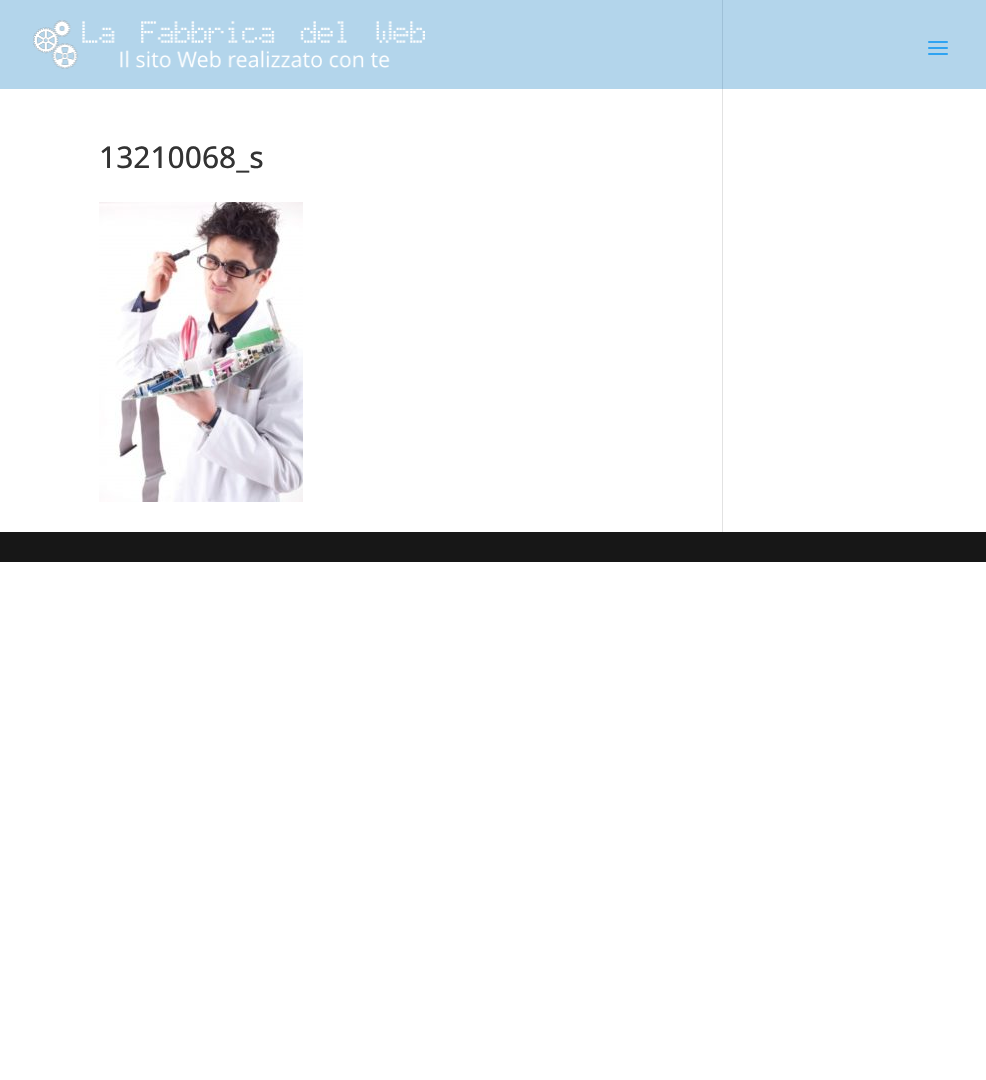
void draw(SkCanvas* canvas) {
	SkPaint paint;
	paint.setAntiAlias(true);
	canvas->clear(0xffffffff);
	paint.setColor(0xffb3d5eb);
	canvas->drawRect(SkRect::MakeXYWH(0, 0, 986, 89), paint);
	canvas->drawImageRect(SkImages::DeferredFromEncodedData(SkData::MakeFromFileName("img1.png")), SkRect::MakeXYWH(33, 20, 392, 49), SkSamplingOptions());
	canvas->drawImageRect(SkImages::DeferredFromEncodedData(SkData::MakeFromFileName("img2.png")), SkRect::MakeXYWH(928, 41, 20, 14), SkSamplingOptions());
	SkFont f1(fontMgr->matchFamilyStyle("Open Sans", SkFontStyle(500, SkFontStyle::kNormal_Width, SkFontStyle::kUpright_Slant)), 30);
	f1.setSubpixel(true);
	paint.setColor(0xff333333);
	canvas->drawString("13210068_s", 99, 168, f1, paint);
	canvas->drawImageRect(SkImages::DeferredFromEncodedData(SkData::MakeFromFileName("img3.png")), SkRect::MakeXYWH(99, 202, 204, 300), SkSamplingOptions());
	paint.setColor(0xffe2e2e2);
	canvas->drawRect(SkRect::MakeXYWH(722, 89, 1, 443), paint);
	paint.setColor(0xff9ec0d7);
	canvas->drawRect(SkRect::MakeXYWH(722, 0, 1, 89), paint);
	paint.setColor(0xff171717);
	canvas->drawRect(SkRect::MakeXYWH(0, 532, 986, 30), paint);
}
